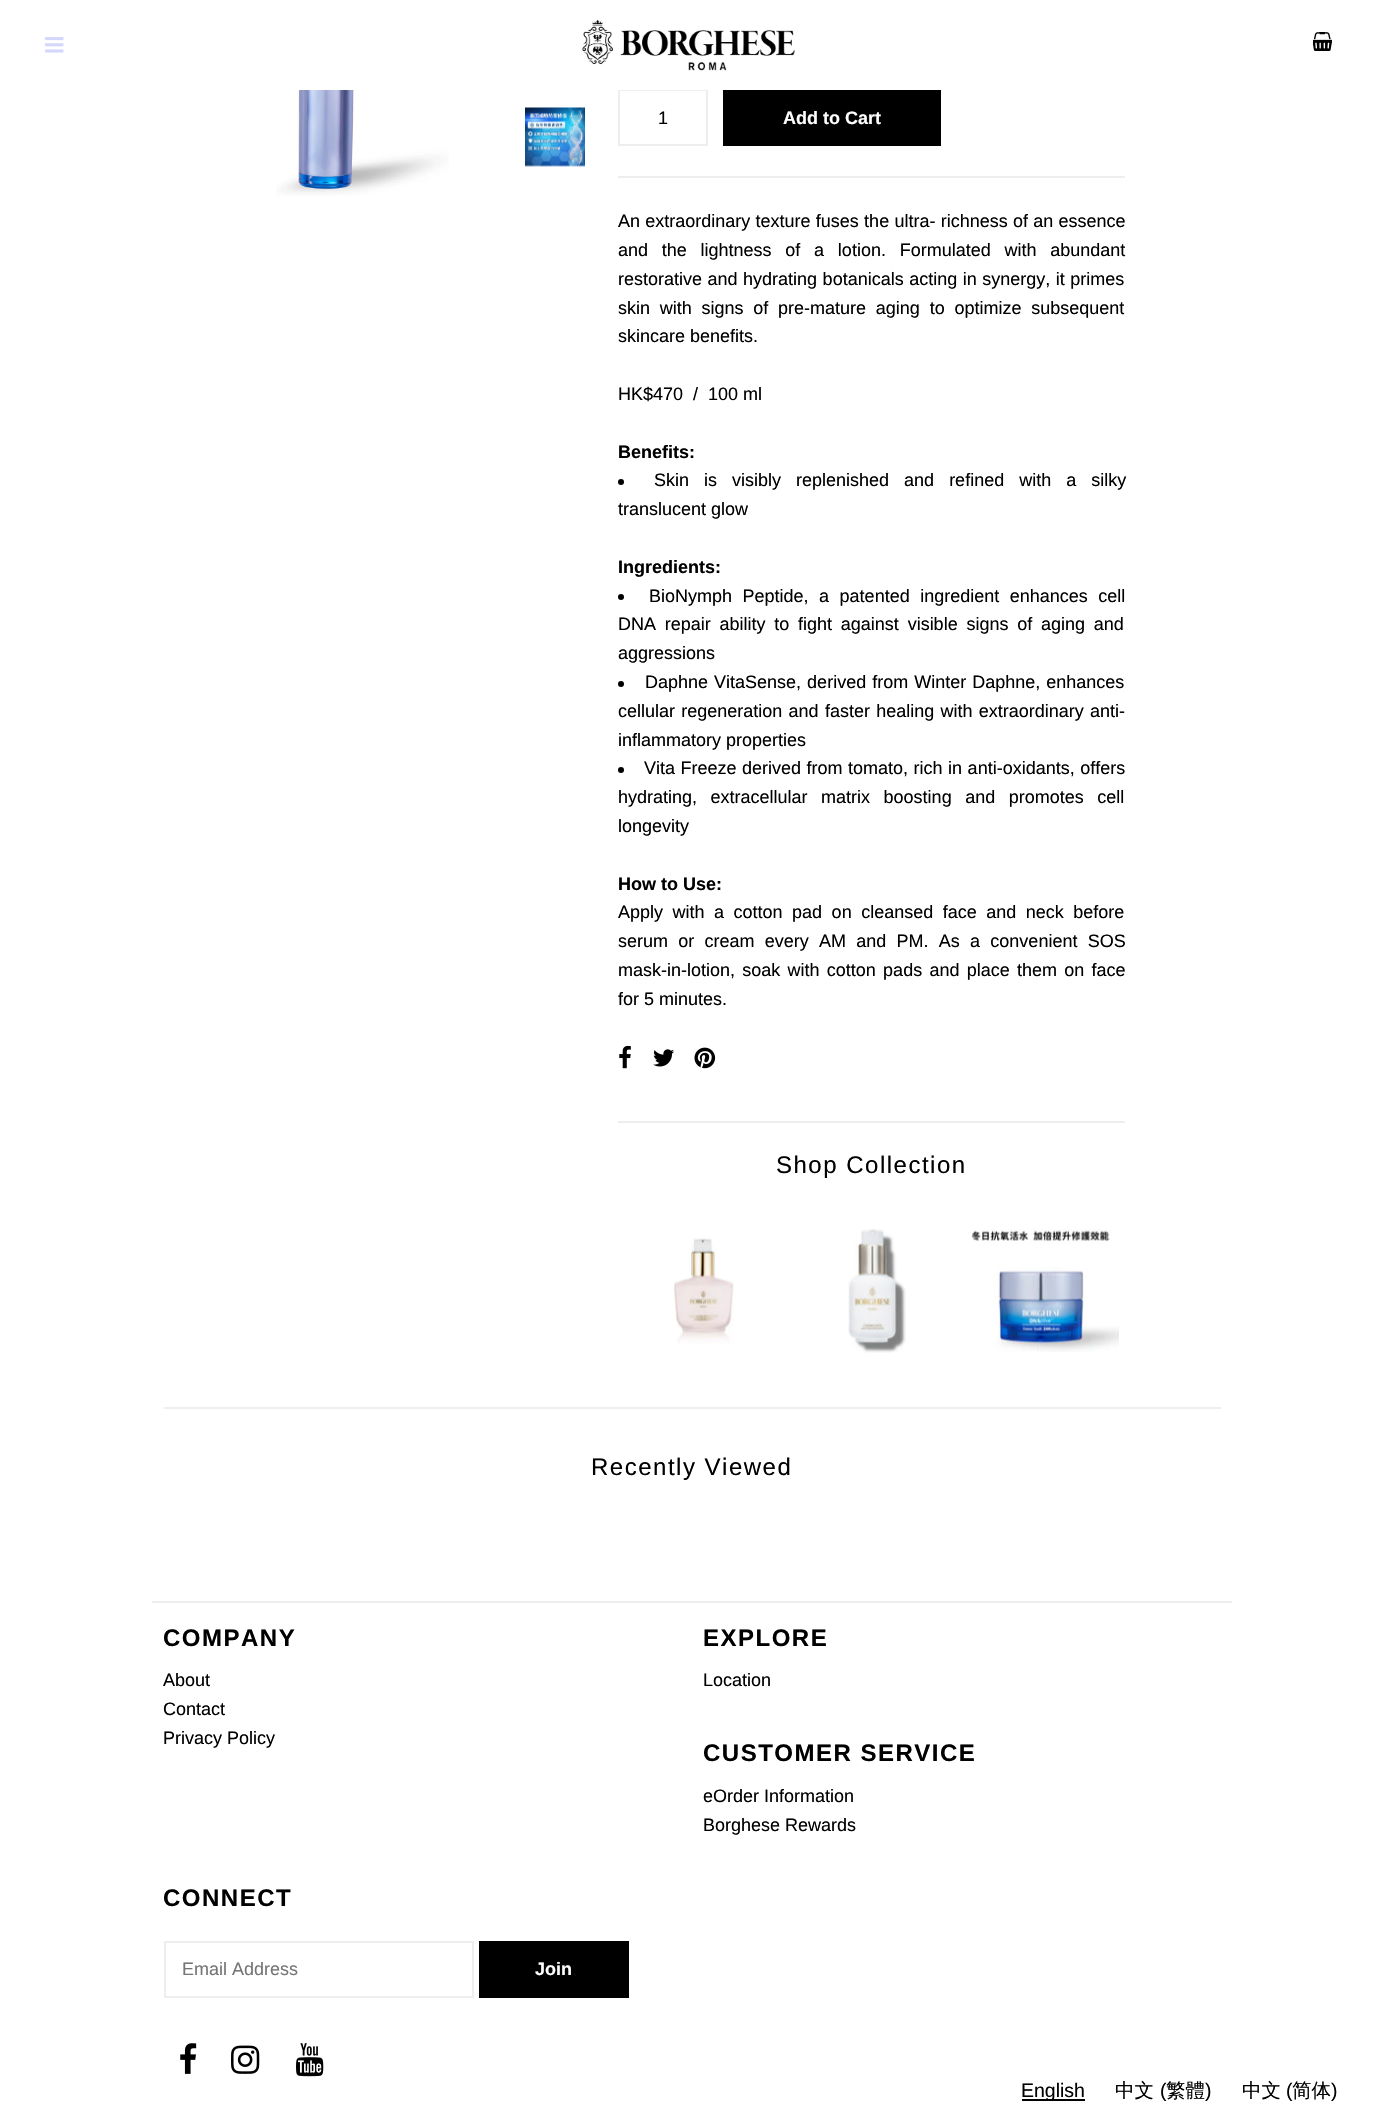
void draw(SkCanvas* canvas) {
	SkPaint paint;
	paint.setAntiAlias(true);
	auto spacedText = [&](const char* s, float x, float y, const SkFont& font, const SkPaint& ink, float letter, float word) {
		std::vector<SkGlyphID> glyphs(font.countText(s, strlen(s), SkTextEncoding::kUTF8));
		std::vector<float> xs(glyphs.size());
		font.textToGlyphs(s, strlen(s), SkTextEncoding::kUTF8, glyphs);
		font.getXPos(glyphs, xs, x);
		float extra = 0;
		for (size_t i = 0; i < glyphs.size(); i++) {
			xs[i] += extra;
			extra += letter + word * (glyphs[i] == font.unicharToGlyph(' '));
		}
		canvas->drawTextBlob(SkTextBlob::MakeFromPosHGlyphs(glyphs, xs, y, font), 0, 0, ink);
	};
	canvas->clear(0xffffffff);
	paint.setStroke(true);
	paint.setStrokeWidth(2);
	paint.setColor(0xffeeeeee);
	canvas->drawRect(SkRect::MakeXYWH(619, 90, 88, 55), paint);
	paint.setStroke(false);
	paint.setColor(0xffffffff);
	canvas->drawRect(SkRect::MakeXYWH(618, 89, 90, 1), paint);
	canvas->drawImageRect(SkImages::DeferredFromEncodedData(SkData::MakeFromFileName("img1.png")), SkRect::MakeXYWH(45, 37, 19, 16), SkSamplingOptions());
	canvas->drawImageRect(SkImages::DeferredFromEncodedData(SkData::MakeFromFileName("img2.png")), SkRect::MakeXYWH(582, 19, 213, 52), SkSamplingOptions());
	canvas->drawImageRect(SkImages::DeferredFromEncodedData(SkData::MakeFromFileName("img3.png")), SkRect::MakeXYWH(1313, 32, 19, 19), SkSamplingOptions());
	canvas->drawImageRect(SkImages::DeferredFromEncodedData(SkData::MakeFromFileName("img4.png")), SkRect::MakeXYWH(276, 90, 173, 106), SkSamplingOptions());
	canvas->drawImageRect(SkImages::DeferredFromEncodedData(SkData::MakeFromFileName("img5.png")), SkRect::MakeXYWH(525, 107, 60, 60), SkSamplingOptions());
	paint.setColor(0xffeeeeee);
	canvas->drawRect(SkRect::MakeXYWH(618, 176, 507, 2), paint);
	SkFont f1(fontMgr->matchFamilyStyle("Liberation Sans", SkFontStyle::Normal()), 18);
	f1.setSubpixel(true);
	paint.setColor(0xff000000);
	canvas->drawString("1", 658, 124, f1, paint);
	canvas->drawRect(SkRect::MakeXYWH(723, 90, 218, 56), paint);
	SkFont f2(fontMgr->matchFamilyStyle("Liberation Sans", SkFontStyle::Bold()), 18);
	f2.setSubpixel(true);
	paint.setColor(0xffffffff);
	canvas->drawString("Add to Cart", 783, 124, f2, paint);
	paint.setColor(0xff000000);
	spacedText("An extraordinary texture fuses the ultra- richness of an essence", 618, 227, f1, paint, 0, 0.25);
	spacedText("and the lightness of a lotion. Formulated with abundant", 618, 256, f1, paint, 0, 8.75);
	spacedText("restorative and hydrating botanicals acting in synergy, it primes", 618, 285, f1, paint, 0, 0.5);
	spacedText("skin with signs of pre-mature aging to optimize subsequent", 618, 314, f1, paint, 0, 4.75);
	canvas->drawString("skincare benefits.", 618, 342, f1, paint);
	canvas->drawString("HK$470  /  100 ml", 618, 400, f1, paint);
	canvas->drawString("Benefits:", 618, 458, f2, paint);
	canvas->drawCircle(621, 482, 3, paint);
	spacedText("Skin is visibly replenished and refined with a silky", 654, 486, f1, paint, 0, 10);
	canvas->drawString("translucent glow", 618, 515, f1, paint);
	canvas->drawString("Ingredients:", 618, 573, f2, paint);
	canvas->drawCircle(621, 597, 3, paint);
	spacedText("BioNymph Peptide, a patented ingredient enhances cell", 649, 602, f1, paint, 0, 5.5);
	spacedText("DNA repair ability to fight against visible signs of aging and", 618, 630, f1, paint, 0, 3.75);
	canvas->drawString("aggressions", 618, 659, f1, paint);
	canvas->drawCircle(621, 684, 3, paint);
	spacedText("Daphne VitaSense, derived from Winter Daphne, enhances", 645, 688, f1, paint, 0, 1);
	spacedText("cellular regeneration and faster healing with extraordinary anti-", 618, 717, f1, paint, 0, 1.25);
	canvas->drawString("inflammatory properties", 618, 746, f1, paint);
	canvas->drawCircle(621, 770, 3, paint);
	spacedText("Vita Freeze derived from tomato, rich in anti-oxidants, offers", 644, 774, f1, paint, 0, 0.5);
	spacedText("hydrating, extracellular matrix boosting and promotes cell", 618, 803, f1, paint, 0, 8.5);
	canvas->drawString("longevity", 618, 832, f1, paint);
	canvas->drawString("How to Use:", 618, 890, f2, paint);
	spacedText("Apply with a cotton pad on cleansed face and neck before", 618, 918, f1, paint, 0, 4.5);
	spacedText("serum or cream every AM and PM. As a convenient SOS", 618, 947, f1, paint, 0, 5.25);
	spacedText("mask-in-lotion, soak with cotton pads and place them on face", 618, 976, f1, paint, 0, 2.25);
	canvas->drawString("for 5 minutes.", 618, 1005, f1, paint);
	canvas->drawImageRect(SkImages::DeferredFromEncodedData(SkData::MakeFromFileName("img6.png")), SkRect::MakeXYWH(619, 1045, 12, 24), SkSamplingOptions());
	canvas->drawImageRect(SkImages::DeferredFromEncodedData(SkData::MakeFromFileName("img7.png")), SkRect::MakeXYWH(653, 1049, 21, 18), SkSamplingOptions());
	canvas->drawImageRect(SkImages::DeferredFromEncodedData(SkData::MakeFromFileName("img8.png")), SkRect::MakeXYWH(694, 1047, 22, 22), SkSamplingOptions());
	paint.setColor(0xffeeeeee);
	canvas->drawRect(SkRect::MakeXYWH(618, 1121, 507, 2), paint);
	SkFont f3(fontMgr->matchFamilyStyle("Liberation Sans", SkFontStyle::Normal()), 24);
	f3.setSubpixel(true);
	paint.setColor(0xff000000);
	spacedText("Shop Collection", 776, 1173, f3, paint, 1.5, 0);
	canvas->drawImageRect(SkImages::DeferredFromEncodedData(SkData::MakeFromFileName("img9.png")), SkRect::MakeXYWH(674, 1238, 60, 106), SkSamplingOptions());
	canvas->drawImageRect(SkImages::DeferredFromEncodedData(SkData::MakeFromFileName("img10.png")), SkRect::MakeXYWH(848, 1229, 58, 124), SkSamplingOptions());
	canvas->drawImageRect(SkImages::DeferredFromEncodedData(SkData::MakeFromFileName("img11.png")), SkRect::MakeXYWH(971, 1229, 148, 123), SkSamplingOptions());
	paint.setColor(0xffeeeeee);
	canvas->drawRect(SkRect::MakeXYWH(164, 1407, 1057, 2), paint);
	paint.setColor(0xff000000);
	spacedText("Recently Viewed", 591, 1475, f3, paint, 1.5, 0);
	paint.setColor(0xffeeeeee);
	canvas->drawRect(SkRect::MakeXYWH(152, 1601, 1080, 2), paint);
	SkFont f4(fontMgr->matchFamilyStyle("Liberation Sans", SkFontStyle::Bold()), 24);
	f4.setSubpixel(true);
	paint.setColor(0xff000000);
	spacedText("COMPANY", 163, 1646, f4, paint, 1.5, 0);
	canvas->drawString("About", 163, 1686, f1, paint);
	canvas->drawString("Contact", 163, 1715, f1, paint);
	canvas->drawString("Privacy Policy", 163, 1744, f1, paint);
	spacedText("EXPLORE", 703, 1646, f4, paint, 1.5, 0);
	canvas->drawString("Location", 703, 1686, f1, paint);
	spacedText("CUSTOMER SERVICE", 703, 1761, f4, paint, 1.5, 0);
	canvas->drawString("eOrder Information", 703, 1802, f1, paint);
	canvas->drawString("Borghese Rewards", 703, 1831, f1, paint);
	spacedText("CONNECT", 163, 1906, f4, paint, 1.5, 0);
	paint.setStroke(true);
	paint.setColor(0xffeeeeee);
	canvas->drawRect(SkRect::MakeXYWH(165, 1942, 308, 55), paint);
	paint.setStroke(false);
	paint.setColor(0xff757575);
	canvas->drawString("Email Address", 182, 1975, f1, paint);
	paint.setColor(0xff000000);
	canvas->drawRect(SkRect::MakeXYWH(479, 1941, 150, 57), paint);
	paint.setColor(0xffffffff);
	canvas->drawString("Join", 535, 1975, f2, paint);
	canvas->drawImageRect(SkImages::DeferredFromEncodedData(SkData::MakeFromFileName("img12.png")), SkRect::MakeXYWH(180, 2043, 17, 31), SkSamplingOptions());
	canvas->drawImageRect(SkImages::DeferredFromEncodedData(SkData::MakeFromFileName("img13.png")), SkRect::MakeXYWH(231, 2045, 29, 29), SkSamplingOptions());
	canvas->drawImageRect(SkImages::DeferredFromEncodedData(SkData::MakeFromFileName("img14.png")), SkRect::MakeXYWH(296, 2043, 28, 34), SkSamplingOptions());
	paint.setColor(0xff000000);
	canvas->drawRect(SkRect::MakeXYWH(1022, 2099, 63, 2), paint);
	SkFont f5(fontMgr->matchFamilyStyle("Liberation Sans", SkFontStyle::Normal()), 19.5);
	f5.setSubpixel(true);
	canvas->drawString("English", 1021, 2097, f5, paint);
	SkFont f6(fontMgr->matchFamilyStyle("WenQuanYi Zen Hei", SkFontStyle(500, SkFontStyle::kNormal_Width, SkFontStyle::kUpright_Slant)), 19.5);
	f6.setSubpixel(true);
	canvas->drawString("中文", 1115, 2097, f6, paint);
	canvas->drawString("(", 1160, 2097, f5, paint);
	canvas->drawString("繁體", 1166, 2097, f6, paint);
	canvas->drawString(")", 1205, 2097, f5, paint);
	canvas->drawString("中文", 1242, 2097, f6, paint);
	canvas->drawString("(", 1286, 2097, f5, paint);
	canvas->drawString("简体", 1292, 2097, f6, paint);
	canvas->drawString(")", 1331, 2097, f5, paint);
}
